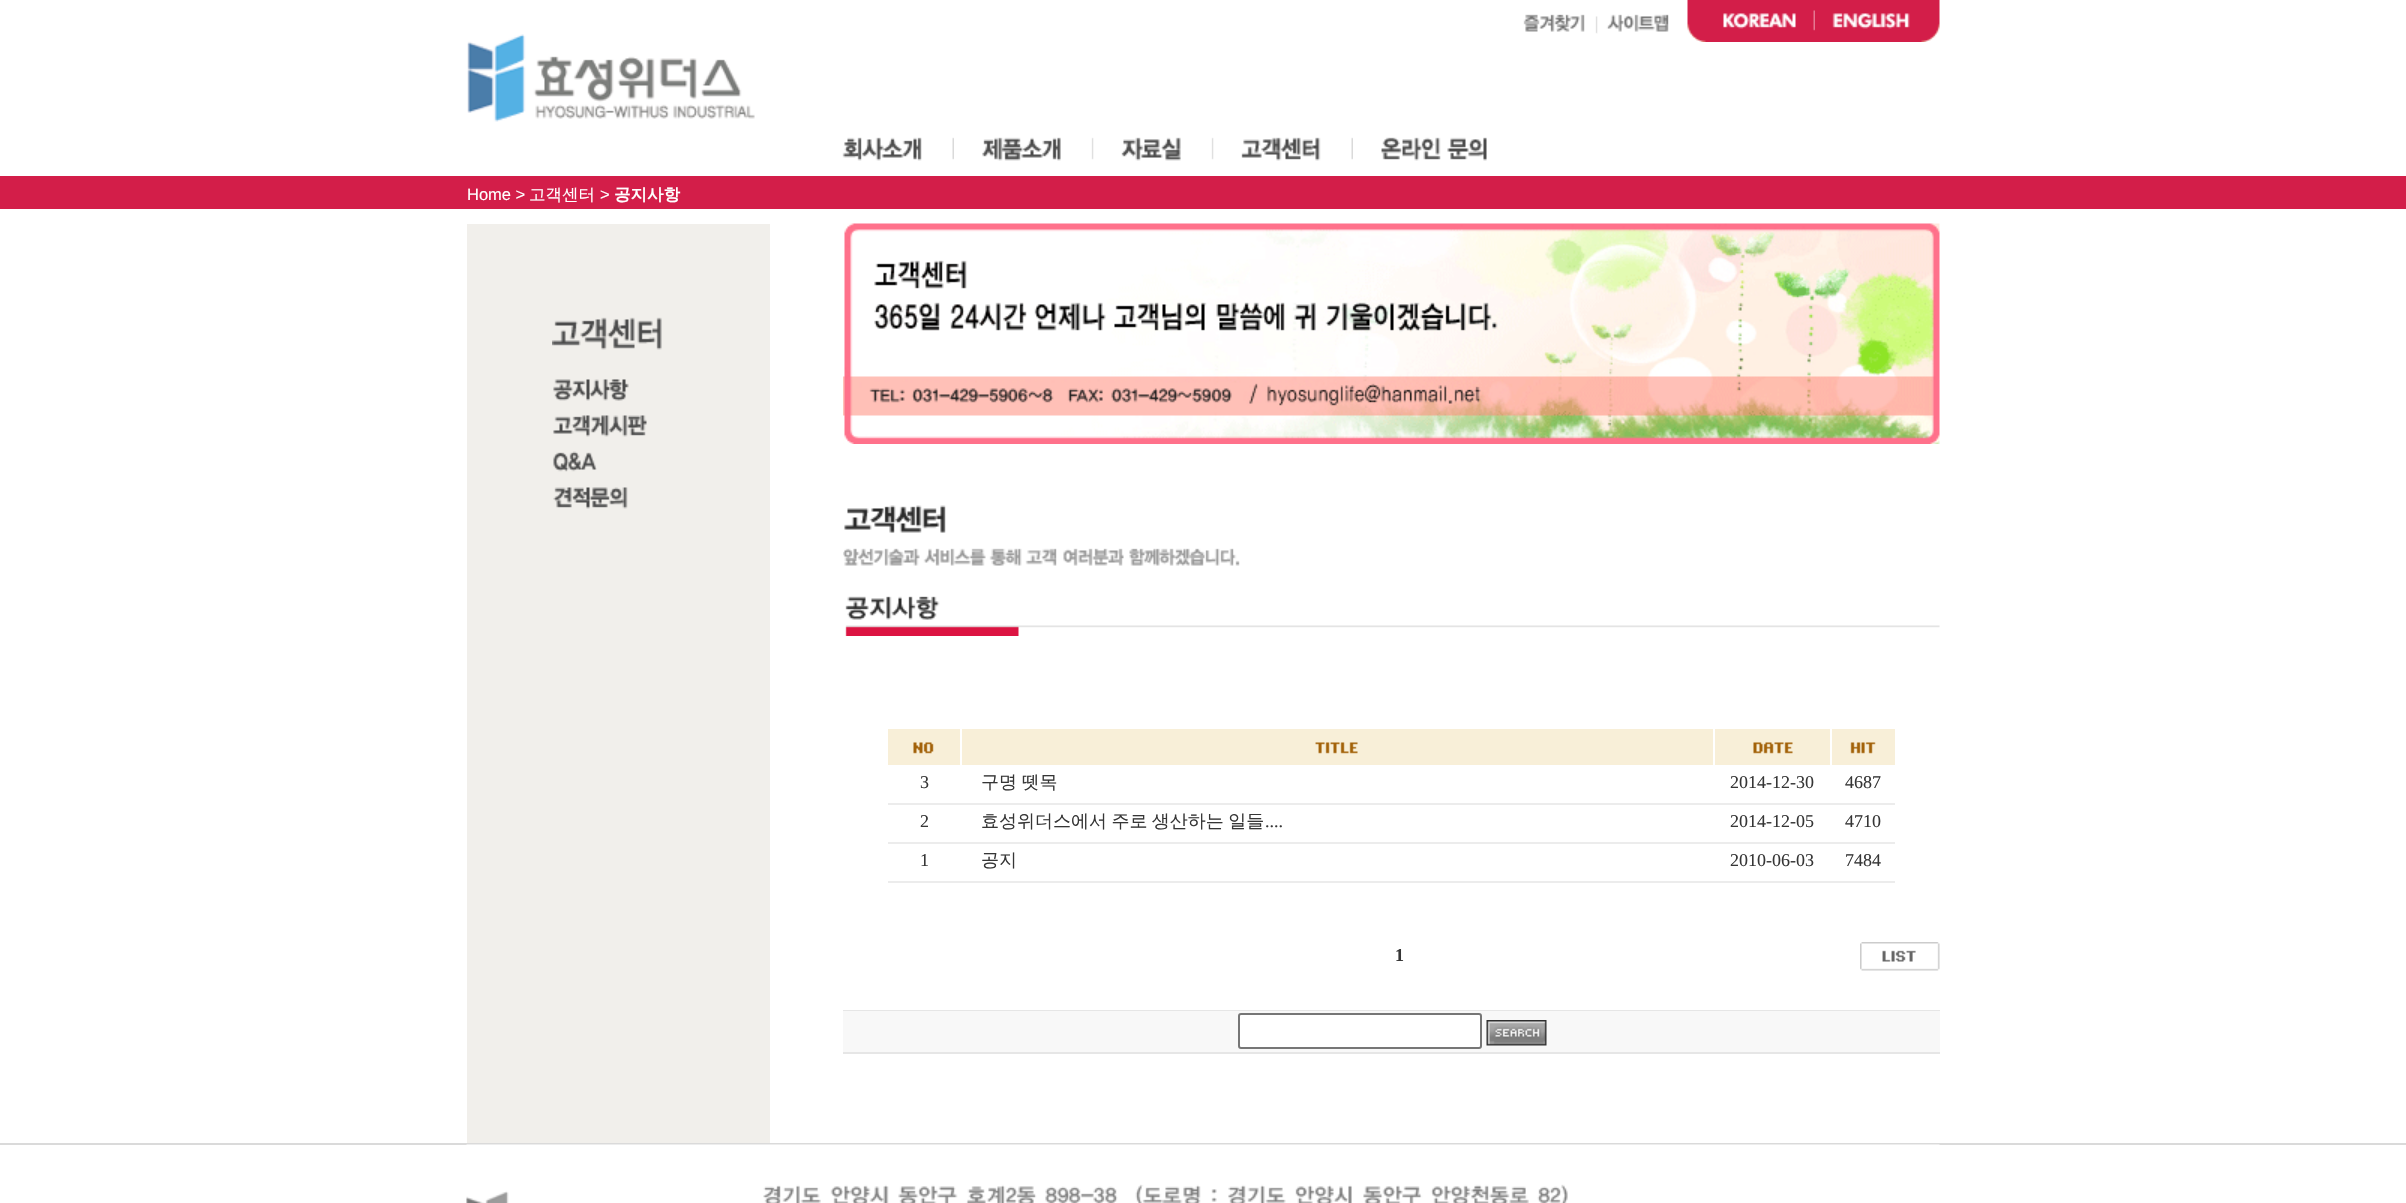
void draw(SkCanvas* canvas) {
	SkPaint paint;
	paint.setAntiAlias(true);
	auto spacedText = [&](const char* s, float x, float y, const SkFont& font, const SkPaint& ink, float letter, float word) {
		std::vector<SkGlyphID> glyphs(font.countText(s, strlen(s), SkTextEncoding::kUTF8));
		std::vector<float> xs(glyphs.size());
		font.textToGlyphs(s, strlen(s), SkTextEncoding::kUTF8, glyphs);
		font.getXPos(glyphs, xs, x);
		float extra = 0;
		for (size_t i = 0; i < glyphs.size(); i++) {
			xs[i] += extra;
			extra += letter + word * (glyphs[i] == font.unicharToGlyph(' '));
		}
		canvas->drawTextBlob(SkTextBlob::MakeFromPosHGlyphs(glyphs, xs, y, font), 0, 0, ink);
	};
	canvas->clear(0xffffffff);
	canvas->drawImageRect(SkImages::DeferredFromEncodedData(SkData::MakeFromFileName("img1.png")), SkRect::MakeXYWH(1523, 14, 75, 20), SkSamplingOptions());
	canvas->drawImageRect(SkImages::DeferredFromEncodedData(SkData::MakeFromFileName("img2.png")), SkRect::MakeXYWH(1597, 14, 72, 19), SkSamplingOptions());
	canvas->drawImageRect(SkImages::DeferredFromEncodedData(SkData::MakeFromFileName("img3.png")), SkRect::MakeXYWH(1687, 0, 128, 42), SkSamplingOptions());
	canvas->drawImageRect(SkImages::DeferredFromEncodedData(SkData::MakeFromFileName("img4.png")), SkRect::MakeXYWH(1815, 0, 125, 42), SkSamplingOptions());
	canvas->drawImageRect(SkImages::DeferredFromEncodedData(SkData::MakeFromFileName("img5.png")), SkRect::MakeXYWH(467, 34, 288, 88), SkSamplingOptions());
	canvas->drawImageRect(SkImages::DeferredFromEncodedData(SkData::MakeFromFileName("img6.png")), SkRect::MakeXYWH(842, 137, 112, 24), SkSamplingOptions());
	canvas->drawImageRect(SkImages::DeferredFromEncodedData(SkData::MakeFromFileName("img7.png")), SkRect::MakeXYWH(982, 137, 112, 24), SkSamplingOptions());
	canvas->drawImageRect(SkImages::DeferredFromEncodedData(SkData::MakeFromFileName("img8.png")), SkRect::MakeXYWH(1093, 137, 121, 24), SkSamplingOptions());
	canvas->drawImageRect(SkImages::DeferredFromEncodedData(SkData::MakeFromFileName("img9.png")), SkRect::MakeXYWH(1213, 137, 140, 24), SkSamplingOptions());
	canvas->drawImageRect(SkImages::DeferredFromEncodedData(SkData::MakeFromFileName("img10.png")), SkRect::MakeXYWH(1381, 137, 106, 24), SkSamplingOptions());
	paint.setColor(0xffd31e49);
	canvas->drawRect(SkRect::MakeXYWH(0, 176, 2406, 33), paint);
	SkFont f1(fontMgr->matchFamilyStyle("Liberation Sans", SkFontStyle::Normal()), 16.5);
	f1.setSubpixel(true);
	paint.setColor(0xffffffff);
	canvas->drawString("Home >", 467, 200, f1, paint);
	SkFont f2(fontMgr->matchFamilyStyle("WenQuanYi Zen Hei", SkFontStyle(500, SkFontStyle::kNormal_Width, SkFontStyle::kUpright_Slant)), 16.5);
	f2.setSubpixel(true);
	canvas->drawString("고객센터", 529, 200, f2, paint);
	canvas->drawString(">", 600, 200, f1, paint);
	SkFont f3(fontMgr->matchFamilyStyle("WenQuanYi Zen Hei", SkFontStyle::Bold()), 16.5);
	f3.setSubpixel(true);
	canvas->drawString("공지사항", 614, 200, f3, paint);
	paint.setColor(0xfff1efeb);
	canvas->drawRect(SkRect::MakeXYWH(467, 224, 303, 919), paint);
	canvas->drawImageRect(SkImages::DeferredFromEncodedData(SkData::MakeFromFileName("img11.png")), SkRect::MakeXYWH(552, 317, 110, 33), SkSamplingOptions());
	canvas->drawImageRect(SkImages::DeferredFromEncodedData(SkData::MakeFromFileName("img12.png")), SkRect::MakeXYWH(553, 379, 76, 22), SkSamplingOptions());
	canvas->drawImageRect(SkImages::DeferredFromEncodedData(SkData::MakeFromFileName("img13.png")), SkRect::MakeXYWH(553, 415, 94, 22), SkSamplingOptions());
	canvas->drawImageRect(SkImages::DeferredFromEncodedData(SkData::MakeFromFileName("img14.png")), SkRect::MakeXYWH(553, 451, 44, 21), SkSamplingOptions());
	canvas->drawImageRect(SkImages::DeferredFromEncodedData(SkData::MakeFromFileName("img15.png")), SkRect::MakeXYWH(553, 487, 75, 22), SkSamplingOptions());
	canvas->drawImageRect(SkImages::DeferredFromEncodedData(SkData::MakeFromFileName("img16.png")), SkRect::MakeXYWH(843, 223, 1097, 221), SkSamplingOptions());
	canvas->drawImageRect(SkImages::DeferredFromEncodedData(SkData::MakeFromFileName("img17.png")), SkRect::MakeXYWH(843, 505, 1097, 131), SkSamplingOptions());
	paint.setColor(0xfff8efd8);
	canvas->drawRect(SkRect::MakeXYWH(888, 729, 1007, 36), paint);
	canvas->drawImageRect(SkImages::DeferredFromEncodedData(SkData::MakeFromFileName("img18.png")), SkRect::MakeXYWH(913, 742, 21, 12), SkSamplingOptions());
	paint.setColor(0xffffffff);
	canvas->drawRect(SkRect::MakeXYWH(960, 729, 2, 36), paint);
	canvas->drawImageRect(SkImages::DeferredFromEncodedData(SkData::MakeFromFileName("img19.png")), SkRect::MakeXYWH(1315, 742, 43, 12), SkSamplingOptions());
	canvas->drawRect(SkRect::MakeXYWH(1713, 729, 2, 36), paint);
	canvas->drawImageRect(SkImages::DeferredFromEncodedData(SkData::MakeFromFileName("img20.png")), SkRect::MakeXYWH(1753, 742, 40, 12), SkSamplingOptions());
	canvas->drawRect(SkRect::MakeXYWH(1830, 729, 2, 36), paint);
	canvas->drawImageRect(SkImages::DeferredFromEncodedData(SkData::MakeFromFileName("img21.png")), SkRect::MakeXYWH(1850, 742, 26, 12), SkSamplingOptions());
	SkFont f4(fontMgr->matchFamilyStyle("Liberation Serif", SkFontStyle::Normal()), 18);
	f4.setSubpixel(true);
	paint.setColor(0xff363636);
	canvas->drawString("3", 920, 788, f4, paint);
	SkFont f5(fontMgr->matchFamilyStyle("WenQuanYi Zen Hei", SkFontStyle(500, SkFontStyle::kNormal_Width, SkFontStyle::kUpright_Slant)), 18);
	f5.setSubpixel(true);
	spacedText("구명 뗏목", 981, 788, f5, paint, 0, -1);
	canvas->drawString("2014-12-30", 1730, 788, f4, paint);
	canvas->drawString("4687", 1845, 788, f4, paint);
	paint.setColor(0xffececec);
	canvas->drawRect(SkRect::MakeXYWH(888, 803, 1007, 2), paint);
	paint.setColor(0xff363636);
	canvas->drawString("2", 920, 827, f4, paint);
	spacedText("효성위더스에서 주로 생산하는 일들", 981, 827, f5, paint, 0, -1);
	canvas->drawString("....", 1265, 827, f4, paint);
	canvas->drawString("2014-12-05", 1730, 827, f4, paint);
	canvas->drawString("4710", 1845, 827, f4, paint);
	paint.setColor(0xffececec);
	canvas->drawRect(SkRect::MakeXYWH(888, 842, 1007, 2), paint);
	paint.setColor(0xff363636);
	canvas->drawString("1", 920, 866, f4, paint);
	canvas->drawString("공지", 981, 866, f5, paint);
	canvas->drawString("2010-06-03", 1730, 866, f4, paint);
	canvas->drawString("7484", 1845, 866, f4, paint);
	paint.setColor(0xffececec);
	canvas->drawRect(SkRect::MakeXYWH(888, 881, 1007, 2), paint);
	SkFont f6(fontMgr->matchFamilyStyle("Liberation Serif", SkFontStyle::Bold()), 18);
	f6.setSubpixel(true);
	paint.setColor(0xff363636);
	canvas->drawString("1", 1395, 961, f6, paint);
	canvas->drawImageRect(SkImages::DeferredFromEncodedData(SkData::MakeFromFileName("img22.png")), SkRect::MakeXYWH(1860, 942, 80, 29), SkSamplingOptions());
	paint.setColor(0xffe6e6e6);
	canvas->drawRect(SkRect::MakeXYWH(843, 1010, 1097, 1), paint);
	paint.setColor(0xfff8f8f8);
	canvas->drawRect(SkRect::MakeXYWH(843, 1011, 1097, 41), paint);
	paint.setColor(0xffffffff);
	canvas->drawRoundRect(SkRect::MakeXYWH(1239, 1014, 242, 34), 2, 2, paint);
	paint.setStroke(true);
	paint.setStrokeWidth(2);
	paint.setColor(0xff767676);
	canvas->drawRoundRect(SkRect::MakeXYWH(1239, 1014, 242, 34), 2, 2, paint);
	canvas->drawImageRect(SkImages::DeferredFromEncodedData(SkData::MakeFromFileName("img23.png")), SkRect::MakeXYWH(1486, 1020, 61, 26), SkSamplingOptions());
	paint.setStroke(false);
	paint.setColor(0xffe6e6e6);
	canvas->drawRect(SkRect::MakeXYWH(843, 1052, 1097, 2), paint);
	paint.setColor(0xffdadada);
	canvas->drawRect(SkRect::MakeXYWH(0, 1143, 2406, 2), paint);
	canvas->drawImageRect(SkImages::DeferredFromEncodedData(SkData::MakeFromFileName("img24.png")), SkRect::MakeXYWH(466, 1144, 1474, 59), SkSamplingOptions());
}
